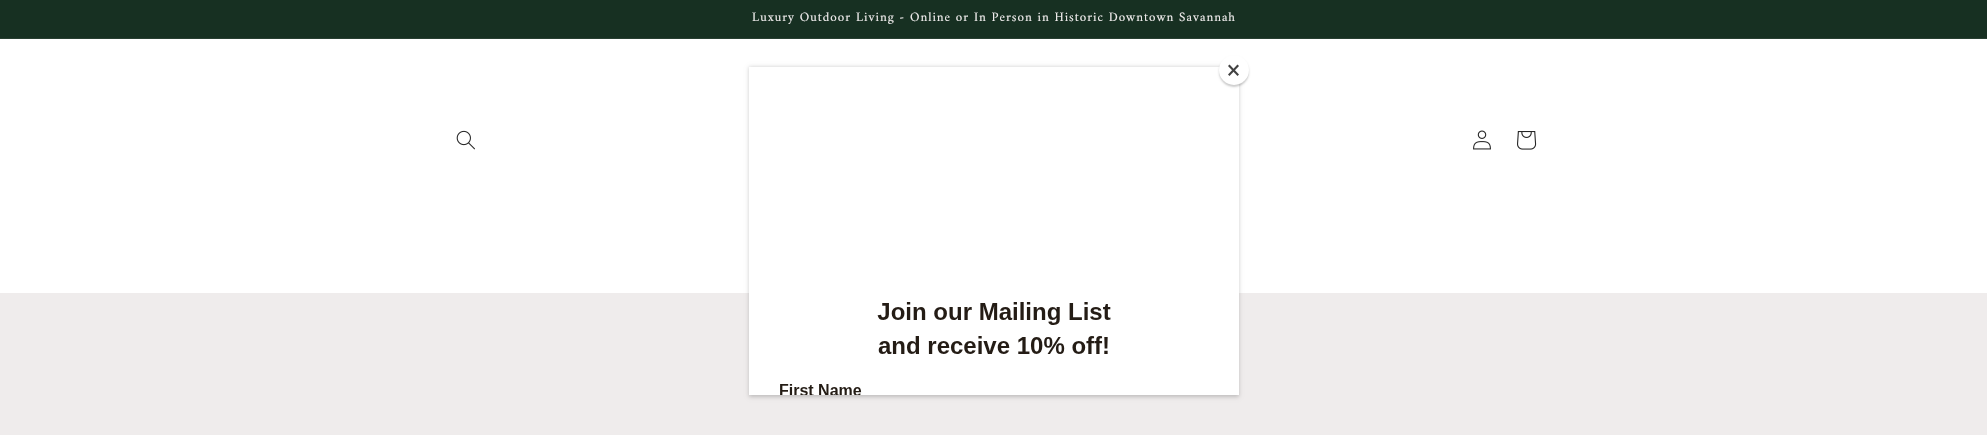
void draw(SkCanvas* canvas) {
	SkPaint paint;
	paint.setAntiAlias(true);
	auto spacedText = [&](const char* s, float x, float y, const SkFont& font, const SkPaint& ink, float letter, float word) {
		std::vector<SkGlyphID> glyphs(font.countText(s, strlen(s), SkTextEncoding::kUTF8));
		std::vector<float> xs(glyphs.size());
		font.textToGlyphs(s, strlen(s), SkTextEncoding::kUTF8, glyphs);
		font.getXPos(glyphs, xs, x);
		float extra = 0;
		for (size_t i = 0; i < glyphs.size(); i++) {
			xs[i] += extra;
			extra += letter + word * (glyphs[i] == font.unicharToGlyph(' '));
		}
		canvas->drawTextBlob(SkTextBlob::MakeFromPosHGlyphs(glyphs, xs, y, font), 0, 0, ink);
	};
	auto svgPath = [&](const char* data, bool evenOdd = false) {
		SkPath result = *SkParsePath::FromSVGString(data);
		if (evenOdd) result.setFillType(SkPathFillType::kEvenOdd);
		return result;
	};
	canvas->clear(0xffefecec);
	paint.setColor(0xff173022);
	canvas->drawRect(SkRect::MakeXYWH(0, 0, 1987, 38), paint);
	paint.setColor(0xff283f32);
	canvas->drawRect(SkRect::MakeXYWH(0, 38, 1987, 1), paint);
	SkFont f1(fontMgr->matchFamilyStyle("Amiri", SkFontStyle::Normal()), 13);
	f1.setSubpixel(true);
	paint.setColor(0xffefecec);
	spacedText("Luxury Outdoor Living - Online or In Person in Historic Downtown Savannah", 752, 21, f1, paint, 1, 0);
	paint.setColor(0xffffffff);
	canvas->drawRect(SkRect::MakeXYWH(0, 39, 1987, 254), paint);
	canvas->drawImageRect(SkImages::DeferredFromEncodedData(SkData::MakeFromFileName("img1.png")), SkRect::MakeXYWH(456, 130, 19, 20), SkSamplingOptions());
	canvas->drawImageRect(SkImages::DeferredFromEncodedData(SkData::MakeFromFileName("img2.png")), SkRect::MakeXYWH(1473, 130, 18, 20), SkSamplingOptions());
	canvas->drawImageRect(SkImages::DeferredFromEncodedData(SkData::MakeFromFileName("img3.png")), SkRect::MakeXYWH(1517, 131, 20, 19), SkSamplingOptions());
	paint.setColor(0x33000000);
	paint.setMaskFilter(SkMaskFilter::MakeBlur(kNormal_SkBlurStyle, 2));
	canvas->drawRect(SkRect::MakeXYWH(749, 67, 490, 330), paint);
	paint.setMaskFilter(nullptr);
	canvas->drawImageRect(SkImages::DeferredFromEncodedData(SkData::MakeFromFileName("img4.png")), SkRect::MakeXYWH(749, 67, 490, 328), SkSamplingOptions());
	paint.setMaskFilter(SkMaskFilter::MakeBlur(kNormal_SkBlurStyle, 1));
	canvas->drawRoundRect(SkRect::MakeXYWH(1219, 57, 30, 30), 15, 15, paint);
	paint.setMaskFilter(nullptr);
	paint.setColor(0xffffffff);
	canvas->drawCircle(1234, 70, 15, paint);
	paint.setColor(0xff414141);
	canvas->drawPath(svgPath("M1237.5 64.5L1239 66L1229.5 76L1228 74.5Z"), paint);
	canvas->drawPath(svgPath("M1228 66L1229.5 64.5L1239 74.5L1237.5 76Z"), paint);
}
